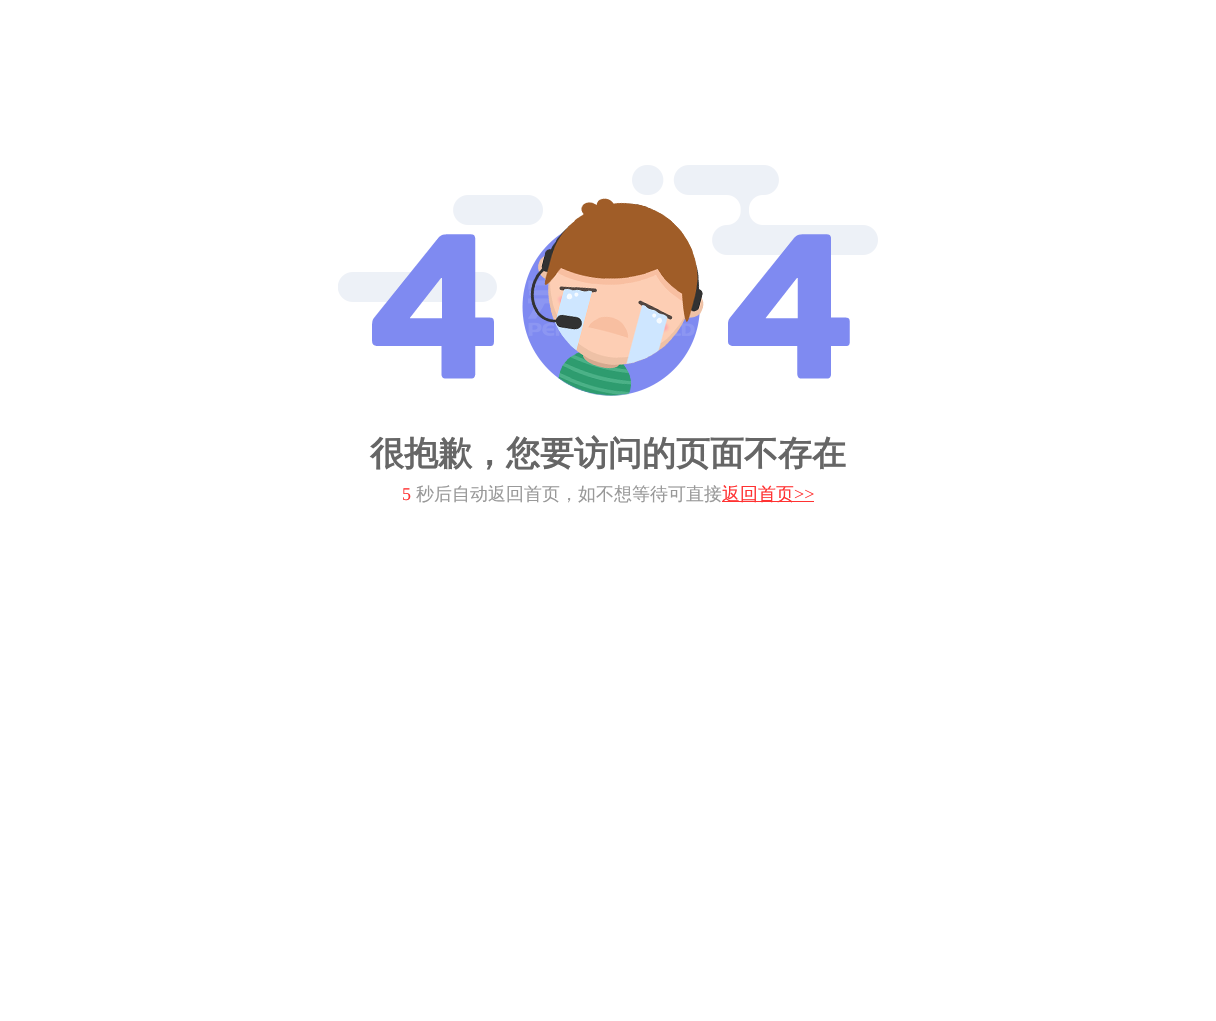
void draw(SkCanvas* canvas) {
	SkPaint paint;
	paint.setAntiAlias(true);
	canvas->clear(0xffffffff);
	canvas->drawImageRect(SkImages::DeferredFromEncodedData(SkData::MakeFromFileName("img1.png")), SkRect::MakeXYWH(338, 165, 540, 231), SkSamplingOptions());
	SkFont f1(fontMgr->matchFamilyStyle("WenQuanYi Zen Hei", SkFontStyle::Bold()), 34);
	f1.setSubpixel(true);
	paint.setColor(0xff666666);
	canvas->drawString("很抱歉，您要访问的页面不存在", 370, 465, f1, paint);
	SkFont f2(fontMgr->matchFamilyStyle("Liberation Serif", SkFontStyle::Normal()), 18);
	f2.setSubpixel(true);
	paint.setColor(0xffff3232);
	canvas->drawString("5", 402, 500, f2, paint);
	SkFont f3(fontMgr->matchFamilyStyle("WenQuanYi Zen Hei", SkFontStyle(500, SkFontStyle::kNormal_Width, SkFontStyle::kUpright_Slant)), 18);
	f3.setSubpixel(true);
	paint.setColor(0xff999999);
	canvas->drawString("秒后自动返回首页，如不想等待可直接", 416, 500, f3, paint);
	paint.setColor(0xffff3232);
	canvas->drawRect(SkRect::MakeXYWH(722, 501, 92, 1), paint);
	canvas->drawString("返回首页", 722, 500, f3, paint);
	canvas->drawString(">>", 794, 500, f2, paint);
}
